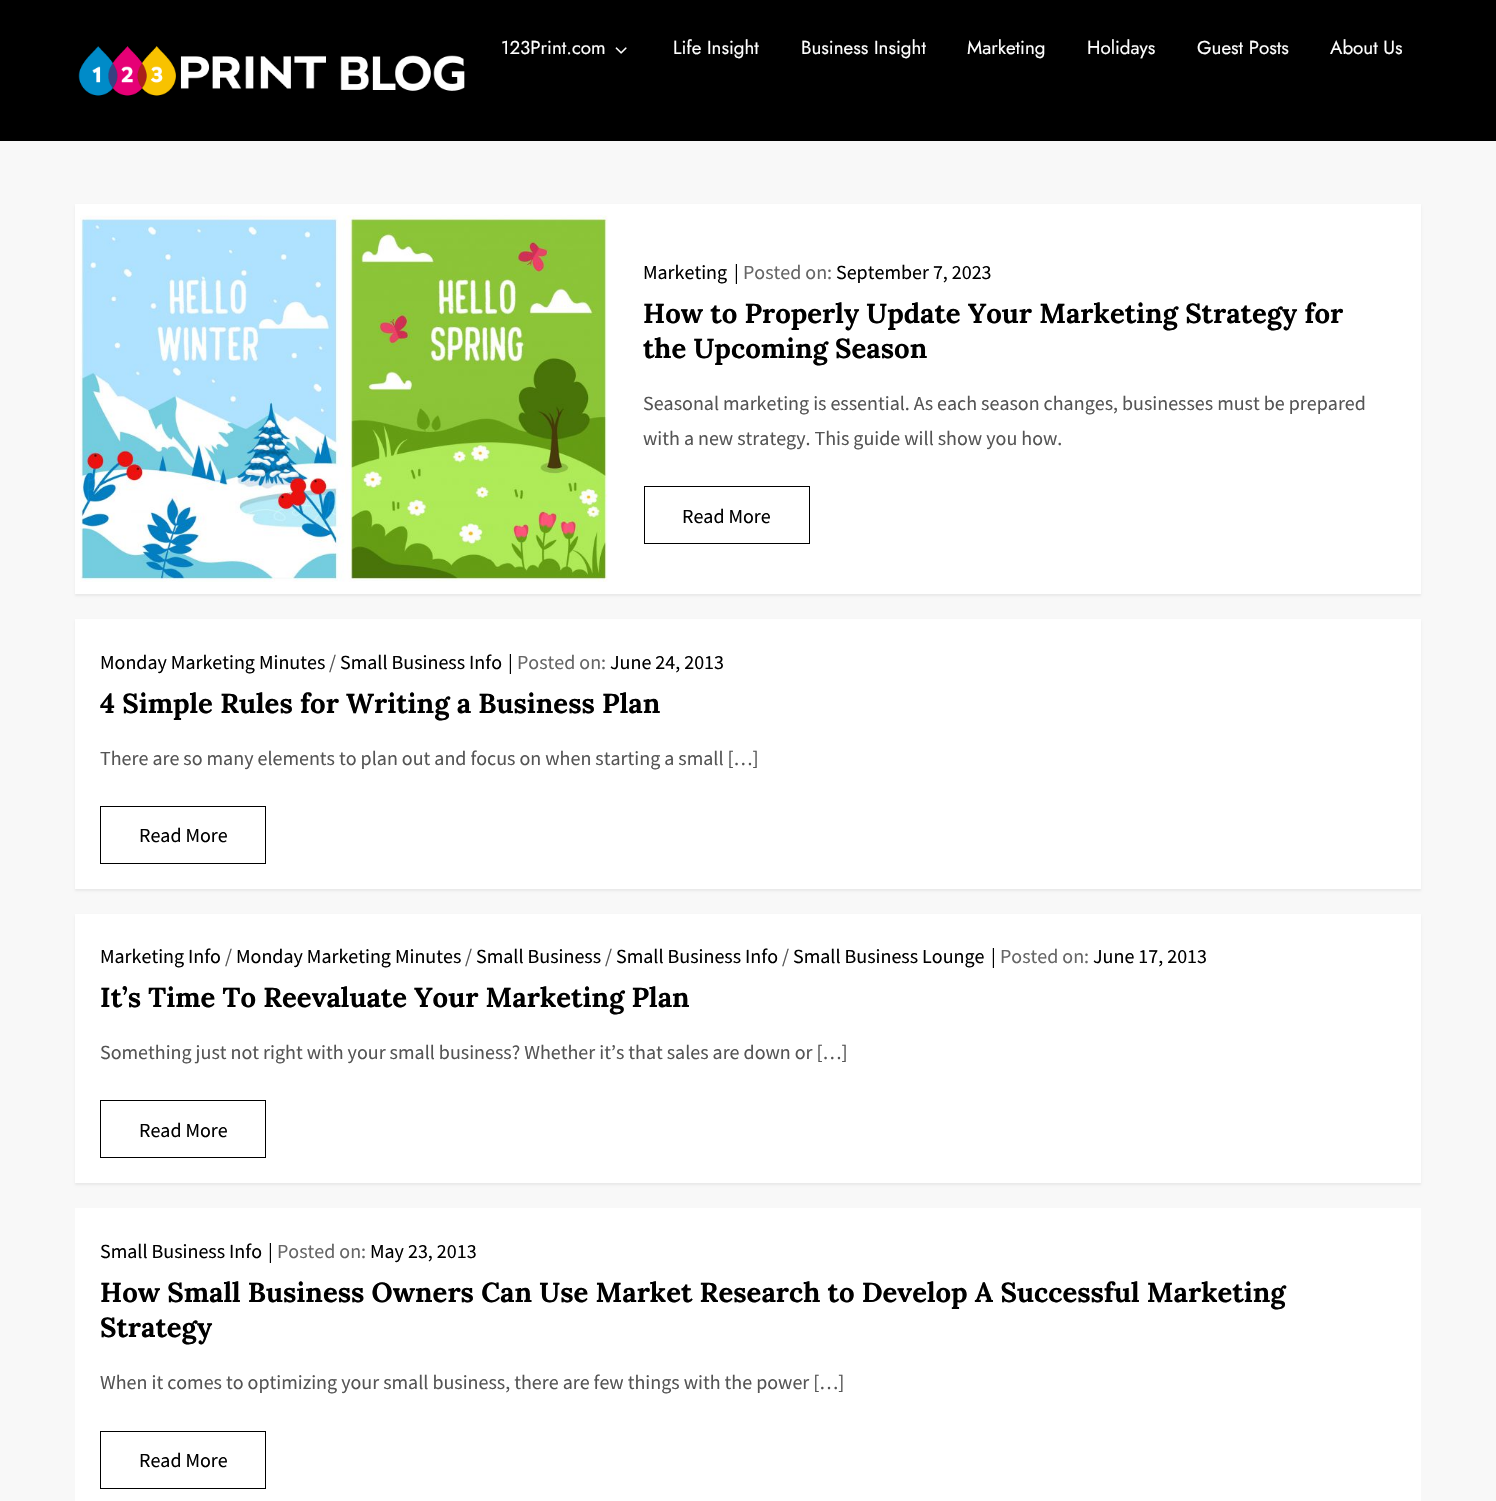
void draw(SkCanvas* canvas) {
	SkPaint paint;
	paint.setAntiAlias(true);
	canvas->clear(0xfff8f8f8);
	paint.setColor(0xff000000);
	canvas->drawRect(SkRect::MakeXYWH(0, 0, 1496, 141), paint);
	canvas->drawImageRect(SkImages::DeferredFromEncodedData(SkData::MakeFromFileName("img1.png")), SkRect::MakeXYWH(78, 46, 387, 50), SkSamplingOptions());
	SkFont f1(fontMgr->matchFamilyStyle("Jost", SkFontStyle::Normal()), 18.75);
	f1.setSubpixel(true);
	paint.setColor(0xffffffff);
	canvas->drawString("123Print.com", 501, 54, f1, paint);
	canvas->drawImageRect(SkImages::DeferredFromEncodedData(SkData::MakeFromFileName("img2.png")), SkRect::MakeXYWH(615, 47, 12, 7), SkSamplingOptions());
	canvas->drawString("Life Insight", 673, 54, f1, paint);
	canvas->drawString("Business Insight", 801, 54, f1, paint);
	canvas->drawString("Marketing", 967, 54, f1, paint);
	canvas->drawString("Holidays", 1087, 54, f1, paint);
	canvas->drawString("Guest Posts", 1197, 54, f1, paint);
	canvas->drawString("About Us", 1330, 54, f1, paint);
	paint.setColor(0x0f000000);
	paint.setMaskFilter(SkMaskFilter::MakeBlur(kNormal_SkBlurStyle, 1));
	canvas->drawRect(SkRect::MakeXYWH(75, 206, 1346, 390), paint);
	paint.setMaskFilter(nullptr);
	paint.setColor(0xffffffff);
	canvas->drawRect(SkRect::MakeXYWH(75, 204, 1346, 390), paint);
	canvas->drawImageRect(SkImages::DeferredFromEncodedData(SkData::MakeFromFileName("img3.png")), SkRect::MakeXYWH(80, 215, 528, 367), SkSamplingOptions());
	SkFont f2(fontMgr->matchFamilyStyle("Source Sans Pro", SkFontStyle::Normal()), 20);
	f2.setSubpixel(true);
	paint.setColor(0xff000000);
	canvas->drawString("Marketing", 643, 279, f2, paint);
	canvas->drawString("|", 734, 279, f2, paint);
	paint.setColor(0xff666666);
	canvas->drawString("Posted on:", 743, 279, f2, paint);
	paint.setColor(0xff000000);
	canvas->drawString("September 7, 2023", 836, 279, f2, paint);
	SkFont f3(fontMgr->matchFamilyStyle("Lora", SkFontStyle::Bold()), 27.5);
	f3.setSubpixel(true);
	canvas->drawString("How to Properly Update Your Marketing Strategy for", 643, 323, f3, paint);
	canvas->drawString("the Upcoming Season", 643, 358, f3, paint);
	paint.setColor(0xff555555);
	canvas->drawString("Seasonal marketing is essential. As each season changes, businesses must be prepared", 643, 410, f2, paint);
	canvas->drawString("with a new strategy. This guide will show you how.", 643, 445, f2, paint);
	paint.setStroke(true);
	paint.setStrokeWidth(1);
	paint.setColor(0xff000000);
	canvas->drawRect(SkRect::MakeXYWH(644.5, 486.5, 165, 57), paint);
	paint.setStroke(false);
	canvas->drawString("Read More", 682, 523, f2, paint);
	paint.setColor(0x0f000000);
	paint.setMaskFilter(SkMaskFilter::MakeBlur(kNormal_SkBlurStyle, 1));
	canvas->drawRect(SkRect::MakeXYWH(75, 621, 1346, 270), paint);
	paint.setMaskFilter(nullptr);
	paint.setColor(0xffffffff);
	canvas->drawRect(SkRect::MakeXYWH(75, 619, 1346, 270), paint);
	paint.setColor(0xff000000);
	canvas->drawString("Monday Marketing Minutes", 100, 669, f2, paint);
	paint.setColor(0xff555555);
	canvas->drawString("/", 329, 669, f2, paint);
	paint.setColor(0xff000000);
	canvas->drawString("Small Business Info", 340, 669, f2, paint);
	canvas->drawString("|", 508, 669, f2, paint);
	paint.setColor(0xff666666);
	canvas->drawString("Posted on:", 517, 669, f2, paint);
	paint.setColor(0xff000000);
	canvas->drawString("June 24, 2013", 610, 669, f2, paint);
	canvas->drawString("4 Simple Rules for Writing a Business Plan", 100, 713, f3, paint);
	paint.setColor(0xff555555);
	canvas->drawString("There are so many elements to plan out and focus on when starting a small […]", 100, 765, f2, paint);
	paint.setStroke(true);
	paint.setColor(0xff000000);
	canvas->drawRect(SkRect::MakeXYWH(100.5, 806.5, 165, 57), paint);
	paint.setStroke(false);
	canvas->drawString("Read More", 139, 842, f2, paint);
	paint.setColor(0x0f000000);
	paint.setMaskFilter(SkMaskFilter::MakeBlur(kNormal_SkBlurStyle, 1));
	canvas->drawRect(SkRect::MakeXYWH(75, 916, 1346, 269), paint);
	paint.setMaskFilter(nullptr);
	paint.setColor(0xffffffff);
	canvas->drawRect(SkRect::MakeXYWH(75, 914, 1346, 269), paint);
	paint.setColor(0xff000000);
	canvas->drawString("Marketing Info", 100, 963, f2, paint);
	paint.setColor(0xff555555);
	canvas->drawString("/", 225, 963, f2, paint);
	paint.setColor(0xff000000);
	canvas->drawString("Monday Marketing Minutes", 236, 963, f2, paint);
	paint.setColor(0xff555555);
	canvas->drawString("/", 465, 963, f2, paint);
	paint.setColor(0xff000000);
	canvas->drawString("Small Business", 476, 963, f2, paint);
	paint.setColor(0xff555555);
	canvas->drawString("/", 605, 963, f2, paint);
	paint.setColor(0xff000000);
	canvas->drawString("Small Business Info", 616, 963, f2, paint);
	paint.setColor(0xff555555);
	canvas->drawString("/", 782, 963, f2, paint);
	paint.setColor(0xff000000);
	canvas->drawString("Small Business Lounge", 793, 963, f2, paint);
	canvas->drawString("|", 991, 963, f2, paint);
	paint.setColor(0xff666666);
	canvas->drawString("Posted on:", 1000, 963, f2, paint);
	paint.setColor(0xff000000);
	canvas->drawString("June 17, 2013", 1093, 963, f2, paint);
	canvas->drawString("It’s Time To Reevaluate Your Marketing Plan", 100, 1007, f3, paint);
	paint.setColor(0xff555555);
	canvas->drawString("Something just not right with your small business? Whether it’s that sales are down or […]", 100, 1059, f2, paint);
	paint.setStroke(true);
	paint.setColor(0xff000000);
	canvas->drawRect(SkRect::MakeXYWH(100.5, 1100.5, 165, 57), paint);
	paint.setStroke(false);
	canvas->drawString("Read More", 139, 1137, f2, paint);
	paint.setColor(0xffffffff);
	canvas->drawRect(SkRect::MakeXYWH(75, 1208, 1346, 293), paint);
	paint.setColor(0xff000000);
	canvas->drawString("Small Business Info", 100, 1258, f2, paint);
	canvas->drawString("|", 268, 1258, f2, paint);
	paint.setColor(0xff666666);
	canvas->drawString("Posted on:", 277, 1258, f2, paint);
	paint.setColor(0xff000000);
	canvas->drawString("May 23, 2013", 370, 1258, f2, paint);
	canvas->drawString("How Small Business Owners Can Use Market Research to Develop A Successful Marketing", 100, 1302, f3, paint);
	canvas->drawString("Strategy", 100, 1337, f3, paint);
	paint.setColor(0xff555555);
	canvas->drawString("When it comes to optimizing your small business, there are few things with the power […]", 100, 1389, f2, paint);
	paint.setStroke(true);
	paint.setColor(0xff000000);
	canvas->drawRect(SkRect::MakeXYWH(100.5, 1431.5, 165, 57), paint);
	paint.setStroke(false);
	canvas->drawString("Read More", 139, 1467, f2, paint);
}
